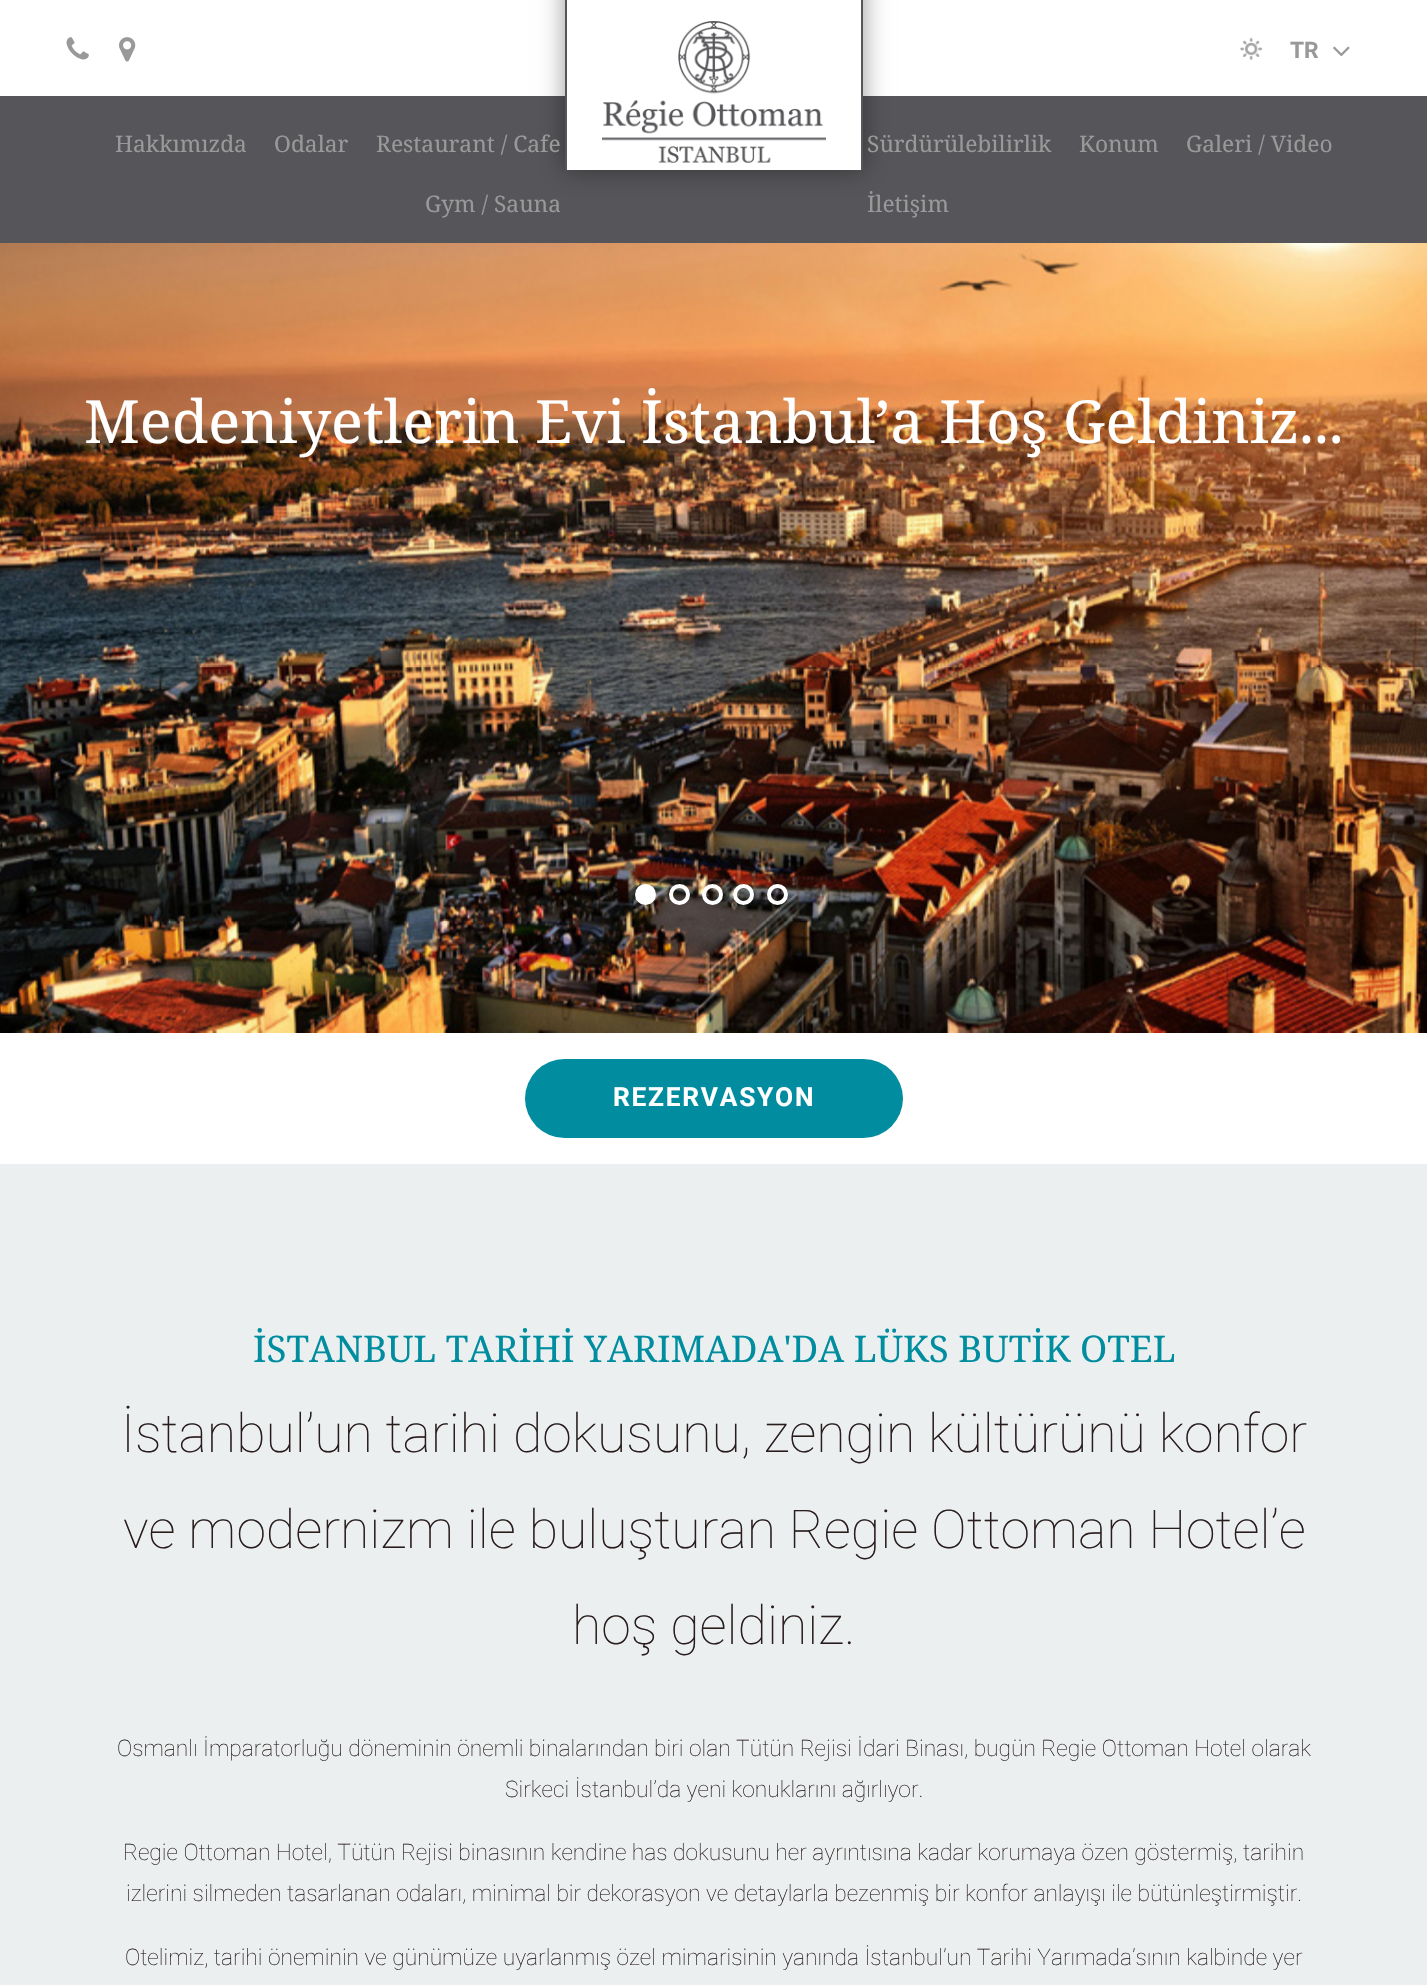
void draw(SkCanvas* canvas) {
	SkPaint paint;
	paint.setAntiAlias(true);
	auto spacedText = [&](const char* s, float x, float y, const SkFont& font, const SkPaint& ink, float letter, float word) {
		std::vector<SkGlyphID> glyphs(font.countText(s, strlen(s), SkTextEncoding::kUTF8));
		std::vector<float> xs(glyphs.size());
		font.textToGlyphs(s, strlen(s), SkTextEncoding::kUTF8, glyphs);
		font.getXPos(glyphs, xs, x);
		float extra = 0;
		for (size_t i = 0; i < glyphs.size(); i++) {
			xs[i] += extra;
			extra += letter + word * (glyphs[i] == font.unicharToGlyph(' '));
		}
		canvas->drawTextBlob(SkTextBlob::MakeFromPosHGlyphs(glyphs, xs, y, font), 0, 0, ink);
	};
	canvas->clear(0xffffffff);
	paint.setColor(0xff56565a);
	canvas->drawRect(SkRect::MakeXYWH(0, 96, 1427, 147), paint);
	paint.setColor(0x66000000);
	paint.setMaskFilter(SkMaskFilter::MakeBlur(kNormal_SkBlurStyle, 12));
	canvas->drawRect(SkRect::MakeXYWH(565, -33, 298, 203), paint);
	paint.setMaskFilter(nullptr);
	paint.setColor(0xffffffff);
	canvas->drawRect(SkRect::MakeXYWH(567, 0, 294, 170), paint);
	paint.setColor(0xff56565a);
	canvas->drawRect(SkRect::MakeXYWH(861, 0, 2, 170), paint);
	canvas->drawRect(SkRect::MakeXYWH(565, 0, 2, 170), paint);
	canvas->drawImageRect(SkImages::DeferredFromEncodedData(SkData::MakeFromFileName("img1.png")), SkRect::MakeXYWH(602, 21, 224, 142), SkSamplingOptions());
	canvas->drawImageRect(SkImages::DeferredFromEncodedData(SkData::MakeFromFileName("img2.png")), SkRect::MakeXYWH(66, 37, 23, 23), SkSamplingOptions());
	canvas->drawImageRect(SkImages::DeferredFromEncodedData(SkData::MakeFromFileName("img3.png")), SkRect::MakeXYWH(119, 37, 17, 25), SkSamplingOptions());
	canvas->drawImageRect(SkImages::DeferredFromEncodedData(SkData::MakeFromFileName("img4.png")), SkRect::MakeXYWH(1240, 37, 23, 24), SkSamplingOptions());
	SkFont f1(fontMgr->matchFamilyStyle("Roboto", SkFontStyle::Bold()), 22.75);
	f1.setSubpixel(true);
	paint.setColor(0xff999999);
	canvas->drawString("TR", 1290, 58, f1, paint);
	canvas->drawImageRect(SkImages::DeferredFromEncodedData(SkData::MakeFromFileName("img5.png")), SkRect::MakeXYWH(1333, 46, 17, 11), SkSamplingOptions());
	SkFont f2(fontMgr->matchFamilyStyle("Noto Serif", SkFontStyle::Normal()), 22.75);
	f2.setSubpixel(true);
	canvas->drawString("Hakkımızda", 115, 152, f2, paint);
	canvas->drawString("Odalar", 274, 152, f2, paint);
	canvas->drawString("Restaurant / Cafe", 376, 152, f2, paint);
	canvas->drawString("Gym / Sauna", 425, 212, f2, paint);
	canvas->drawString("Sürdürülebilirlik", 867, 152, f2, paint);
	canvas->drawString("Konum", 1079, 152, f2, paint);
	canvas->drawString("Galeri / Video", 1186, 152, f2, paint);
	canvas->drawString("İletişim", 867, 212, f2, paint);
	canvas->drawImageRect(SkImages::DeferredFromEncodedData(SkData::MakeFromFileName("img6.png")), SkRect::MakeXYWH(0, 243, 1427, 790), SkSamplingOptions());
	SkFont f3(fontMgr->matchFamilyStyle("Noto Serif", SkFontStyle::Normal()), 59.5);
	f3.setSubpixel(true);
	paint.setColor(0xffffffff);
	canvas->drawString("Medeniyetlerin Evi İstanbul’a Hoş Geldiniz...", 84, 443, f3, paint);
	canvas->drawCircle(645.5, 894.5, 8.5, paint);
	paint.setStroke(true);
	paint.setStrokeWidth(4);
	canvas->drawCircle(645.5, 894.5, 8.5, paint);
	canvas->drawCircle(679.5, 894.5, 8.5, paint);
	canvas->drawCircle(712.5, 894.5, 8.5, paint);
	canvas->drawCircle(743.5, 894.5, 8.5, paint);
	canvas->drawCircle(777.5, 894.5, 8.5, paint);
	paint.setStroke(false);
	paint.setColor(0xff018d9f);
	canvas->drawRoundRect(SkRect::MakeXYWH(525, 1059, 378, 79), 39.5, 39.5, paint);
	SkFont f4(fontMgr->matchFamilyStyle("Roboto", SkFontStyle::Bold()), 26.25);
	f4.setSubpixel(true);
	paint.setColor(0xffffffff);
	spacedText("REZERVASYON", 613, 1106, f4, paint, 1.75, 0);
	paint.setColor(0xffebeff0);
	canvas->drawRect(SkRect::MakeXYWH(0, 1164, 1427, 821), paint);
	SkFont f5(fontMgr->matchFamilyStyle("Noto Serif", SkFontStyle::Normal()), 36.75);
	f5.setSubpixel(true);
	paint.setColor(0xff008d9f);
	canvas->drawString("İSTANBUL TARİHİ YARIMADA'DA LÜKS BUTİK OTEL", 253, 1362, f5, paint);
	SkFont f6(fontMgr->matchFamilyStyle("Roboto", SkFontStyle(100, SkFontStyle::kNormal_Width, SkFontStyle::kUpright_Slant)), 53.55);
	f6.setSubpixel(true);
	paint.setColor(0xff291c1c);
	canvas->drawString("İstanbul’un tarihi dokusunu, zengin kültürünü konfor", 121, 1452, f6, paint);
	canvas->drawString("ve modernizm ile buluşturan Regie Ottoman Hotel’e", 123, 1548, f6, paint);
	canvas->drawString("hoş geldiniz.", 572, 1644, f6, paint);
	SkFont f7(fontMgr->matchFamilyStyle("Roboto", SkFontStyle(100, SkFontStyle::kNormal_Width, SkFontStyle::kUpright_Slant)), 22.75);
	f7.setSubpixel(true);
	canvas->drawString("Osmanlı İmparatorluğu döneminin önemli binalarından biri olan Tütün Rejisi İdari Binası, bugün Regie Ottoman Hotel olarak", 117, 1756, f7, paint);
	canvas->drawString("Sirkeci İstanbul’da yeni konuklarını ağırlıyor.", 505, 1797, f7, paint);
	canvas->drawString("Regie Ottoman Hotel, Tütün Rejisi binasının kendine has dokusunu her ayrıntısına kadar korumaya özen göstermiş, tarihin", 123, 1860, f7, paint);
	canvas->drawString("izlerini silmeden tasarlanan odaları, minimal bir dekorasyon ve detaylarla bezenmiş bir konfor anlayışı ile bütünleştirmiştir.", 126, 1901, f7, paint);
	canvas->drawString("Otelimiz, tarihi öneminin ve günümüze uyarlanmış özel mimarisinin yanında İstanbul’un Tarihi Yarımada’sının kalbinde yer", 125, 1965, f7, paint);
}
